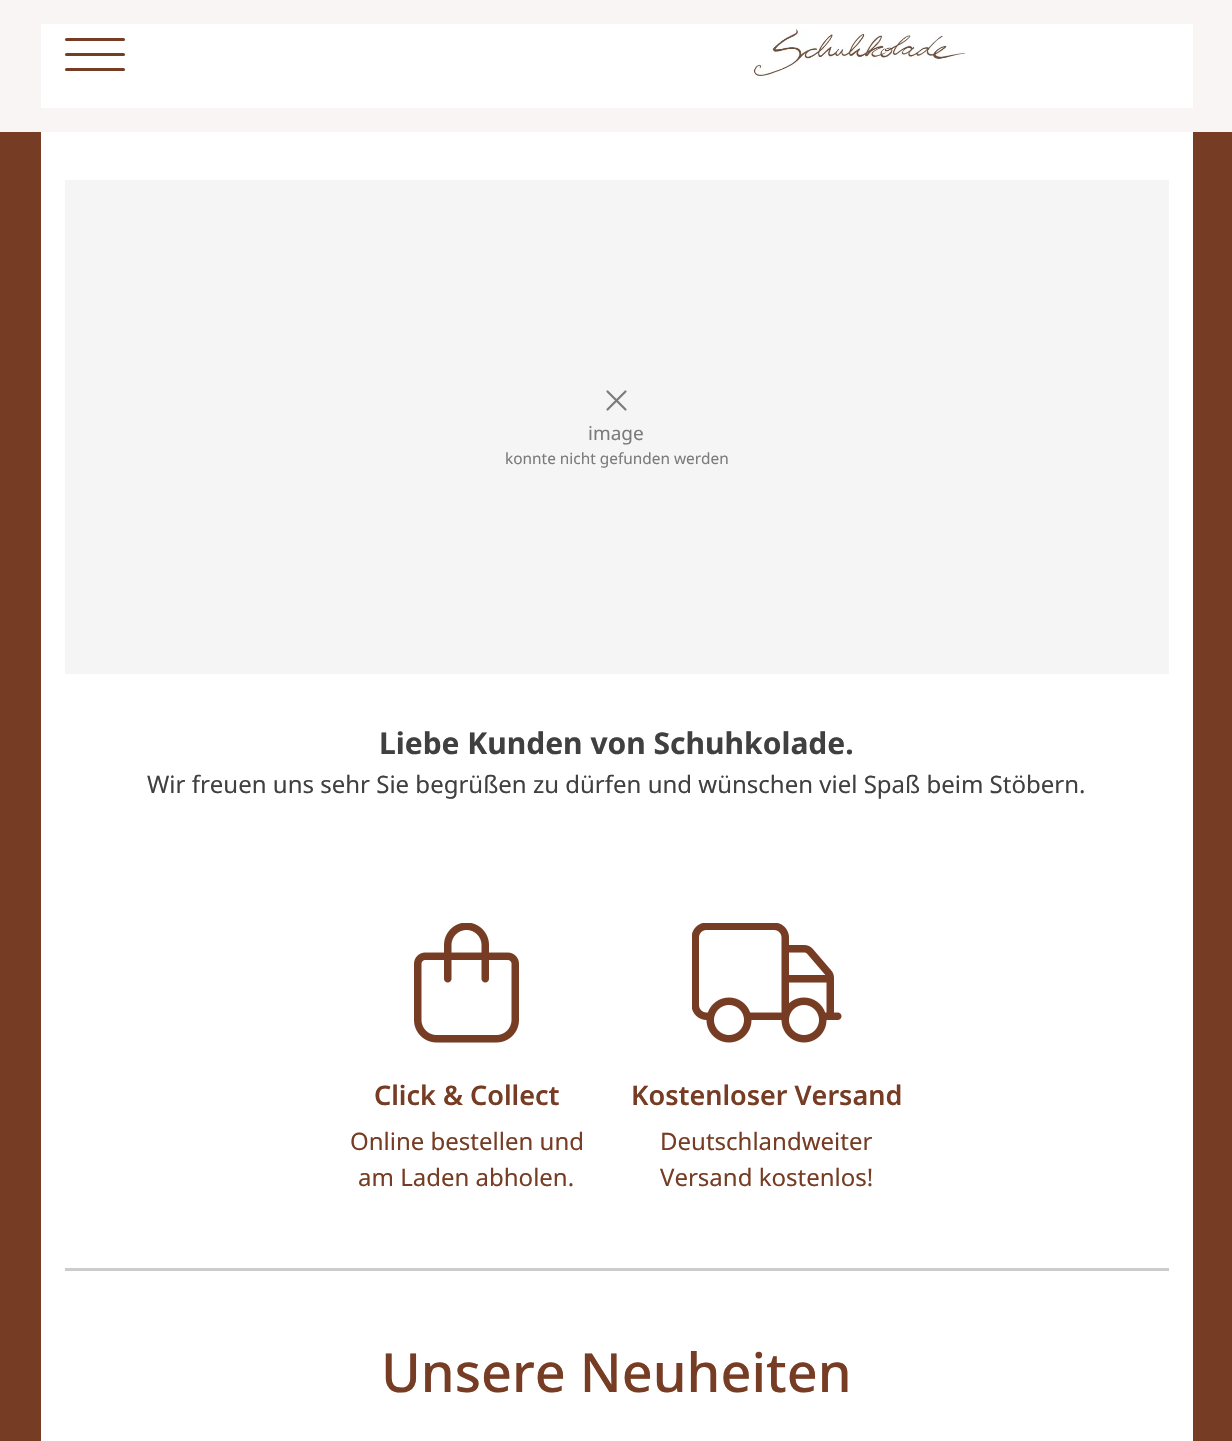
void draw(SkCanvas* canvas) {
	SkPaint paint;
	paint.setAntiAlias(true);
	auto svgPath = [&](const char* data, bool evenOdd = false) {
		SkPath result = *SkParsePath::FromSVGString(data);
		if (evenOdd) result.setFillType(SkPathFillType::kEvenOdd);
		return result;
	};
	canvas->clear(0xff773d24);
	paint.setColor(0xfff8f5f4);
	canvas->drawRect(SkRect::MakeXYWH(0, 0, 1232, 132), paint);
	paint.setColor(0xffffffff);
	canvas->drawRect(SkRect::MakeXYWH(41, 24, 1152, 84), paint);
	paint.setColor(0xff773d24);
	canvas->drawRoundRect(SkRect::MakeXYWH(65, 53, 60, 3), 1.5, 1.5, paint);
	canvas->drawRoundRect(SkRect::MakeXYWH(65, 38, 60, 3), 1.5, 1.5, paint);
	canvas->drawRoundRect(SkRect::MakeXYWH(65, 68, 60, 3), 1.5, 1.5, paint);
	canvas->drawImageRect(SkImages::DeferredFromEncodedData(SkData::MakeFromFileName("img1.png")), SkRect::MakeXYWH(753, 29, 213, 50), SkSamplingOptions());
	paint.setColor(0xffffffff);
	canvas->drawRect(SkRect::MakeXYWH(41, 132, 1152, 1309), paint);
	paint.setColor(0xfff5f5f6);
	canvas->drawRect(SkRect::MakeXYWH(65, 180, 1104, 494), paint);
	paint.setStroke(true);
	paint.setStrokeWidth(2.2);
	paint.setStrokeCap(SkPaint::kRound_Cap);
	paint.setStrokeJoin(SkPaint::kRound_Join);
	paint.setColor(0xff7b7b7b);
	canvas->drawPath(svgPath("M607.5 409.5L625.5 391.5M607.5 391.5L625.5 409.5"), paint);
	SkFont f1(fontMgr->matchFamilyStyle("Noto Sans", SkFontStyle::Normal()), 19);
	f1.setSubpixel(true);
	paint.setStroke(false);
	canvas->drawString("image", 588, 440, f1, paint);
	SkFont f2(fontMgr->matchFamilyStyle("Noto Sans", SkFontStyle::Normal()), 15.4);
	f2.setSubpixel(true);
	canvas->drawString("konnte nicht gefunden werden", 505, 464, f2, paint);
	SkFont f3(fontMgr->matchFamilyStyle("Noto Sans", SkFontStyle::Bold()), 30);
	f3.setSubpixel(true);
	paint.setColor(0xff404040);
	canvas->drawString("Liebe Kunden von Schuhkolade.", 379, 754, f3, paint);
	SkFont f4(fontMgr->matchFamilyStyle("Noto Sans", SkFontStyle::Normal()), 24);
	f4.setSubpixel(true);
	canvas->drawString("Wir freuen uns sehr Sie begrüßen zu dürfen und wünschen viel Spaß beim Stöbern.", 147, 793, f4, paint);
	canvas->drawImageRect(SkImages::DeferredFromEncodedData(SkData::MakeFromFileName("img2.png")), SkRect::MakeXYWH(414, 923, 105, 120), SkSamplingOptions());
	SkFont f5(fontMgr->matchFamilyStyle("Noto Sans", SkFontStyle(600, SkFontStyle::kNormal_Width, SkFontStyle::kUpright_Slant)), 27);
	f5.setSubpixel(true);
	paint.setColor(0xff773d24);
	canvas->drawString("Click & Collect", 374, 1105, f5, paint);
	canvas->drawString("Online bestellen und", 350, 1150, f4, paint);
	canvas->drawString("am Laden abholen.", 358, 1186, f4, paint);
	canvas->drawImageRect(SkImages::DeferredFromEncodedData(SkData::MakeFromFileName("img3.png")), SkRect::MakeXYWH(692, 923, 150, 120), SkSamplingOptions());
	canvas->drawString("Kostenloser Versand", 631, 1105, f5, paint);
	canvas->drawString("Deutschlandweiter", 660, 1150, f4, paint);
	canvas->drawString("Versand kostenlos!", 660, 1186, f4, paint);
	paint.setColor(0xffcccccc);
	canvas->drawRect(SkRect::MakeXYWH(65, 1268, 1104, 3), paint);
	SkFont f6(fontMgr->matchFamilyStyle("Noto Sans", SkFontStyle(500, SkFontStyle::kNormal_Width, SkFontStyle::kUpright_Slant)), 54);
	f6.setSubpixel(true);
	paint.setColor(0xff773d24);
	canvas->drawString("Unsere Neuheiten", 381, 1392, f6, paint);
}
